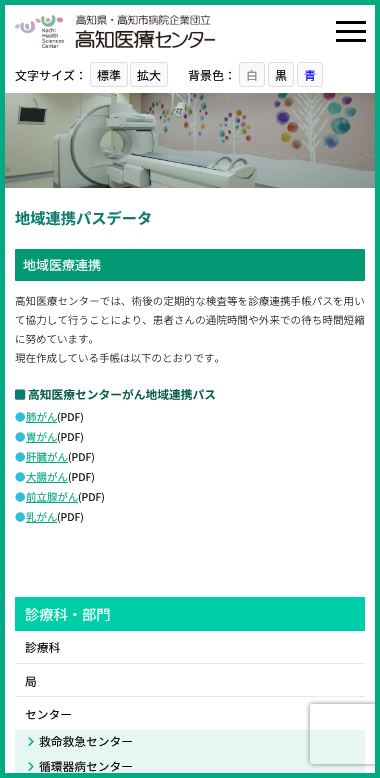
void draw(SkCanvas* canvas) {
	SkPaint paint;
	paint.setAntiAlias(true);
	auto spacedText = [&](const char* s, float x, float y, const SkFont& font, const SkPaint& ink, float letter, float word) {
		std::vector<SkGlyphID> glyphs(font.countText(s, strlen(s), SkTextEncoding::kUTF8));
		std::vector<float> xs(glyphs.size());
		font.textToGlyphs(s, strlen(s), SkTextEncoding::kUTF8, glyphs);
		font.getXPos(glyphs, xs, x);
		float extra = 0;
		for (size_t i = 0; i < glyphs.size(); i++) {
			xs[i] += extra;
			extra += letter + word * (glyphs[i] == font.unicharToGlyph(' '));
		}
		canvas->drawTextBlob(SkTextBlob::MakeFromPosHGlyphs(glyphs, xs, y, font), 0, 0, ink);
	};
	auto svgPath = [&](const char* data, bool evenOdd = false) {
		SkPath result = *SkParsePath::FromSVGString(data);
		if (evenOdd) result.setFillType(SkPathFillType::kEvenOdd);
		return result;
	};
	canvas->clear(0xffffffff);
	paint.setColor(0xff00aa82);
	canvas->drawRect(SkRect::MakeXYWH(0, 0, 380, 5), paint);
	canvas->drawRect(SkRect::MakeXYWH(0, 773, 380, 5), paint);
	canvas->drawRect(SkRect::MakeXYWH(0, 0, 5, 778), paint);
	paint.setColor(0xff000000);
	canvas->drawRect(SkRect::MakeXYWH(336, 21, 30, 3), paint);
	canvas->drawRect(SkRect::MakeXYWH(336, 30, 30, 3), paint);
	canvas->drawRect(SkRect::MakeXYWH(336, 39, 30, 3), paint);
	canvas->drawImageRect(SkImages::DeferredFromEncodedData(SkData::MakeFromFileName("img1.png")), SkRect::MakeXYWH(15, 15, 200, 33), SkSamplingOptions());
	SkFont f1(fontMgr->matchFamilyStyle("Noto Sans JP", SkFontStyle::Normal()), 12);
	f1.setSubpixel(true);
	canvas->drawString("文字サイズ：", 15, 80, f1, paint);
	paint.setColor(0xfffafafa);
	canvas->drawRoundRect(SkRect::MakeXYWH(90.5, 62.5, 37, 24), 2.5, 2.5, paint);
	paint.setStroke(true);
	paint.setStrokeWidth(1);
	paint.setColor(0xffdddddd);
	canvas->drawRoundRect(SkRect::MakeXYWH(90.5, 62.5, 37, 24), 2.5, 2.5, paint);
	paint.setStroke(false);
	paint.setColor(0xff000000);
	canvas->drawString("標準", 97, 80, f1, paint);
	paint.setColor(0xfffafafa);
	canvas->drawRoundRect(SkRect::MakeXYWH(130.5, 62.5, 37, 24), 2.5, 2.5, paint);
	paint.setStroke(true);
	paint.setColor(0xffdddddd);
	canvas->drawRoundRect(SkRect::MakeXYWH(130.5, 62.5, 37, 24), 2.5, 2.5, paint);
	paint.setStroke(false);
	paint.setColor(0xff000000);
	canvas->drawString("拡大", 137, 80, f1, paint);
	canvas->drawString("背景色：", 188, 80, f1, paint);
	paint.setColor(0xfffafafa);
	canvas->drawRoundRect(SkRect::MakeXYWH(239.5, 62.5, 25, 24), 2.5, 2.5, paint);
	paint.setStroke(true);
	paint.setColor(0xffdddddd);
	canvas->drawRoundRect(SkRect::MakeXYWH(239.5, 62.5, 25, 24), 2.5, 2.5, paint);
	paint.setStroke(false);
	paint.setColor(0xff808080);
	canvas->drawString("白", 246, 80, f1, paint);
	paint.setColor(0xfffafafa);
	canvas->drawRoundRect(SkRect::MakeXYWH(268.5, 62.5, 25, 24), 2.5, 2.5, paint);
	paint.setStroke(true);
	paint.setColor(0xffdddddd);
	canvas->drawRoundRect(SkRect::MakeXYWH(268.5, 62.5, 25, 24), 2.5, 2.5, paint);
	paint.setStroke(false);
	paint.setColor(0xff000000);
	canvas->drawString("黒", 275, 80, f1, paint);
	paint.setColor(0xfffafafa);
	canvas->drawRoundRect(SkRect::MakeXYWH(297.5, 62.5, 25, 24), 2.5, 2.5, paint);
	paint.setStroke(true);
	paint.setColor(0xffdddddd);
	canvas->drawRoundRect(SkRect::MakeXYWH(297.5, 62.5, 25, 24), 2.5, 2.5, paint);
	paint.setStroke(false);
	paint.setColor(0xff0000ff);
	canvas->drawString("青", 304, 80, f1, paint);
	canvas->drawImageRect(SkImages::DeferredFromEncodedData(SkData::MakeFromFileName("img2.png")), SkRect::MakeXYWH(5, 93, 370, 95), SkSamplingOptions());
	SkFont f2(fontMgr->matchFamilyStyle("Noto Sans JP", SkFontStyle::Bold()), 15.25);
	f2.setSubpixel(true);
	paint.setColor(0xff0c7c70);
	canvas->drawString("地域連携パスデータ", 15, 224, f2, paint);
	paint.setColor(0xff039975);
	canvas->drawRoundRect(SkRect::MakeXYWH(15, 249, 350, 32), 1, 1, paint);
	SkFont f3(fontMgr->matchFamilyStyle("Noto Sans JP", SkFontStyle::Normal()), 13);
	f3.setSubpixel(true);
	paint.setColor(0xffffffff);
	canvas->drawString("地域医療連携", 23, 270, f3, paint);
	SkFont f4(fontMgr->matchFamilyStyle("Noto Sans JP", SkFontStyle(300, SkFontStyle::kNormal_Width, SkFontStyle::kUpright_Slant)), 10.5);
	f4.setSubpixel(true);
	paint.setColor(0xff000000);
	spacedText("高知医療センターでは、術後の定期的な検査等を診療連携手帳パスを用い", 15, 305, f4, paint, 0.1, 0);
	spacedText("て協力して行うことにより、患者さんの通院時間や外来での待ち時間短縮", 15, 324, f4, paint, 0.1, 0);
	canvas->drawString("に努めています。", 15, 343, f4, paint);
	canvas->drawString("現在作成している手帳は以下のとおりです。", 15, 362, f4, paint);
	canvas->drawImageRect(SkImages::DeferredFromEncodedData(SkData::MakeFromFileName("img3.png")), SkRect::MakeXYWH(15, 389, 11, 11), SkSamplingOptions());
	SkFont f5(fontMgr->matchFamilyStyle("Noto Sans JP", SkFontStyle(600, SkFontStyle::kNormal_Width, SkFontStyle::kUpright_Slant)), 11.75);
	f5.setSubpixel(true);
	paint.setColor(0xff015c46);
	canvas->drawString("高知医療センターがん地域連携パス", 28, 399, f5, paint);
	SkFont f6(fontMgr->matchFamilyStyle("Noto Sans JP", SkFontStyle::Normal()), 10.5);
	f6.setSubpixel(true);
	paint.setColor(0xff2fbedd);
	canvas->drawString("●", 15, 421, f6, paint);
	paint.setColor(0xff00a981);
	canvas->drawString("肺がん", 26, 421, f6, paint);
	canvas->drawRect(SkRect::MakeXYWH(26, 422, 31, 1), paint);
	paint.setColor(0xff000000);
	canvas->drawString("(PDF)", 57, 421, f6, paint);
	paint.setColor(0xff2fbedd);
	canvas->drawString("●", 15, 441, f6, paint);
	paint.setColor(0xff00a981);
	canvas->drawString("胃がん", 26, 441, f6, paint);
	canvas->drawRect(SkRect::MakeXYWH(26, 442, 31, 1), paint);
	paint.setColor(0xff000000);
	canvas->drawString("(PDF)", 57, 441, f6, paint);
	paint.setColor(0xff2fbedd);
	canvas->drawString("●", 15, 461, f6, paint);
	paint.setColor(0xff00a981);
	canvas->drawString("肝臓がん", 26, 461, f6, paint);
	canvas->drawRect(SkRect::MakeXYWH(26, 462, 42, 1), paint);
	paint.setColor(0xff000000);
	canvas->drawString("(PDF)", 68, 461, f6, paint);
	paint.setColor(0xff2fbedd);
	canvas->drawString("●", 15, 481, f6, paint);
	paint.setColor(0xff00a981);
	canvas->drawString("大腸がん", 26, 481, f6, paint);
	canvas->drawRect(SkRect::MakeXYWH(26, 482, 42, 1), paint);
	paint.setColor(0xff000000);
	canvas->drawString("(PDF)", 68, 481, f6, paint);
	paint.setColor(0xff2fbedd);
	canvas->drawString("●", 15, 501, f6, paint);
	paint.setColor(0xff00a981);
	canvas->drawString("前立腺がん", 26, 501, f6, paint);
	canvas->drawRect(SkRect::MakeXYWH(26, 502, 52, 1), paint);
	paint.setColor(0xff000000);
	canvas->drawString("(PDF)", 78, 501, f6, paint);
	paint.setColor(0xff2fbedd);
	canvas->drawString("●", 15, 521, f6, paint);
	paint.setColor(0xff00a981);
	canvas->drawString("乳がん", 26, 521, f6, paint);
	canvas->drawRect(SkRect::MakeXYWH(26, 522, 31, 1), paint);
	paint.setColor(0xff000000);
	canvas->drawString("(PDF)", 57, 521, f6, paint);
	paint.setColor(0xff00cea8);
	canvas->drawRect(SkRect::MakeXYWH(15, 597, 350, 34), paint);
	SkFont f7(fontMgr->matchFamilyStyle("Noto Sans JP", SkFontStyle::Normal()), 14.25);
	f7.setSubpixel(true);
	paint.setColor(0xffffffff);
	canvas->drawString("診療科・部門", 25, 620, f7, paint);
	paint.setColor(0xffe6e6e6);
	canvas->drawRect(SkRect::MakeXYWH(15, 663, 350, 1), paint);
	SkFont f8(fontMgr->matchFamilyStyle("Noto Sans JP", SkFontStyle::Normal()), 11.75);
	f8.setSubpixel(true);
	paint.setColor(0xff000000);
	canvas->drawString("診療科", 25, 652, f8, paint);
	paint.setColor(0xffe6e6e6);
	canvas->drawRect(SkRect::MakeXYWH(15, 696, 350, 1), paint);
	paint.setColor(0xff000000);
	canvas->drawString("局", 25, 686, f8, paint);
	canvas->drawString("センター", 25, 719, f8, paint);
	paint.setColor(0xffe6f7f3);
	canvas->drawRect(SkRect::MakeXYWH(15, 730, 350, 43), paint);
	canvas->drawImageRect(SkImages::DeferredFromEncodedData(SkData::MakeFromFileName("img4.png")), SkRect::MakeXYWH(28, 737, 6, 9), SkSamplingOptions());
	paint.setColor(0xff000000);
	canvas->drawString("救命救急センター", 39, 746, f8, paint);
	canvas->drawImageRect(SkImages::DeferredFromEncodedData(SkData::MakeFromFileName("img4.png")), SkRect::MakeXYWH(28, 762, 6, 9), SkSamplingOptions());
	canvas->drawString("循環器病センター", 39, 771, f8, paint);
	canvas->save();
	canvas->clipPath(svgPath("M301 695H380V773H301ZM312 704H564C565 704 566 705 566 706V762C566 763 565 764 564 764H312C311 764 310 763 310 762V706C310 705 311 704 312 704Z", true), true);
	paint.setColor(0xff808080);
	paint.setMaskFilter(SkMaskFilter::MakeBlur(kNormal_SkBlurStyle, 2.5));
	canvas->drawRoundRect(SkRect::MakeXYWH(310, 704, 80, 60), 2, 2, paint);
	paint.setMaskFilter(nullptr);
	canvas->restore();
	paint.setColor(0xff00aa82);
	canvas->drawRect(SkRect::MakeXYWH(375, 0, 5, 778), paint);
}
